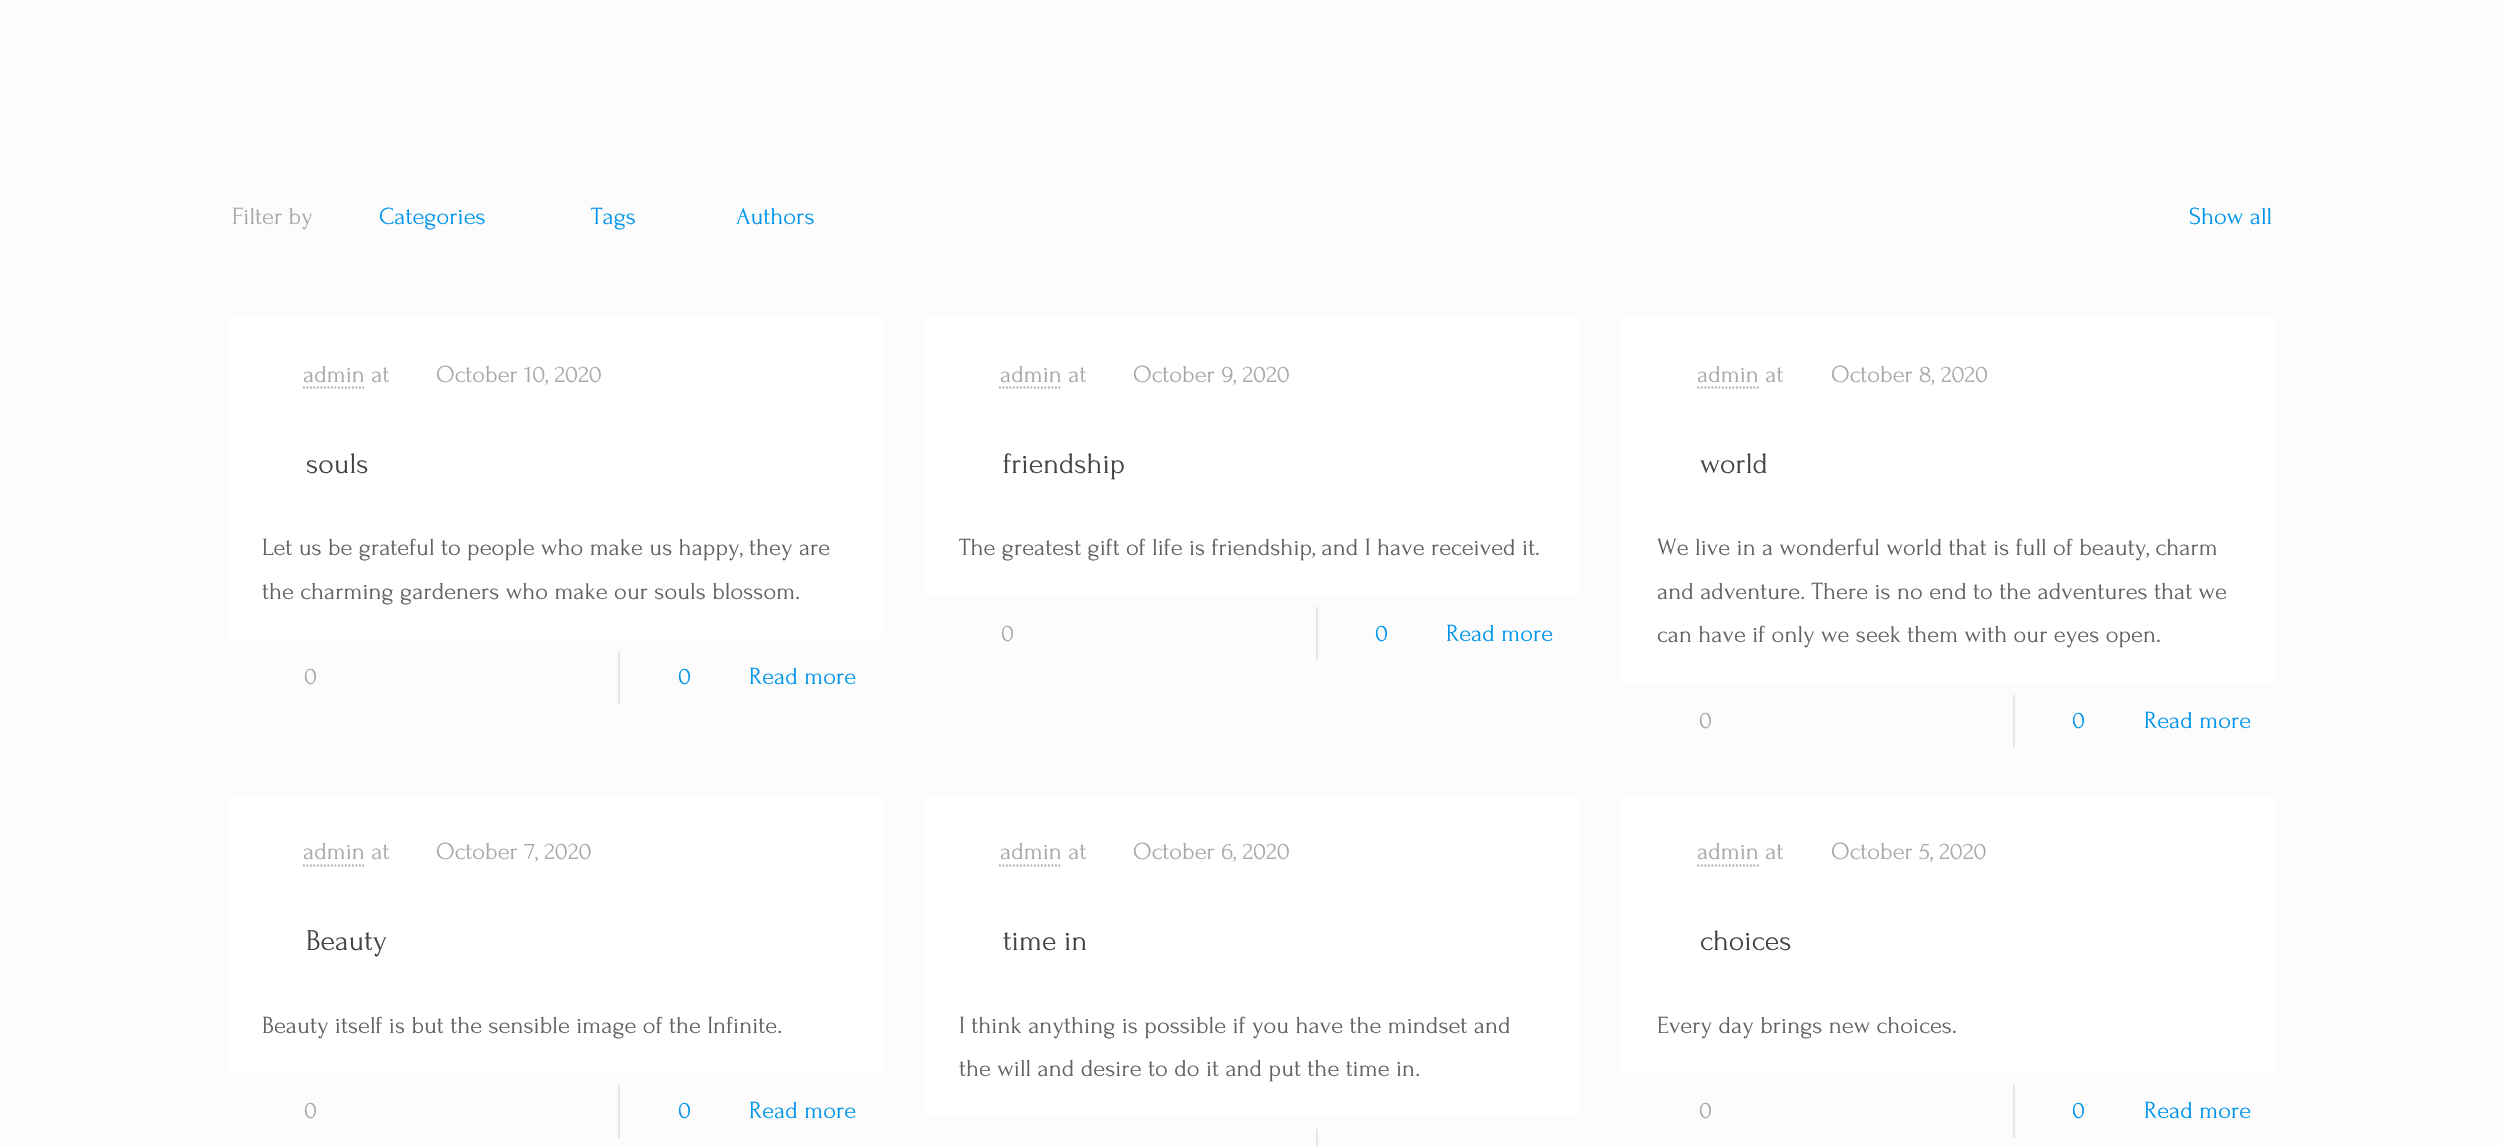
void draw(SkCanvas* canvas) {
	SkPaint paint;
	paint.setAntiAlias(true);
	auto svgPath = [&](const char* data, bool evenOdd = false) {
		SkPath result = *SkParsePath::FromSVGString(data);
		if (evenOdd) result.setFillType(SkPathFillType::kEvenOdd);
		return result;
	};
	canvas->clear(0xfffcfcfc);
	SkFont f1(fontMgr->matchFamilyStyle("Forum", SkFontStyle::Normal()), 24.5);
	f1.setSubpixel(true);
	paint.setColor(0xffa8a8a8);
	canvas->drawString("Filter by", 232, 224, f1, paint);
	paint.setColor(0xff0095eb);
	canvas->drawString("Categories", 379, 224, f1, paint);
	canvas->drawString("Tags", 591, 224, f1, paint);
	canvas->drawString("Authors", 736, 224, f1, paint);
	canvas->drawString("Show all", 2189, 224, f1, paint);
	paint.setColor(0xffffffff);
	canvas->drawRect(SkRect::MakeXYWH(228, 317, 654, 322), paint);
	paint.setColor(0xffa8a8a8);
	canvas->drawString("admin at", 303, 382, f1, paint);
	paint.setStroke(true);
	paint.setStrokeWidth(1.8);
	paint.setPathEffect(SkDashPathEffect::Make({{1.75f, 1.75f}}, 0));
	canvas->drawPath(svgPath("M303 387.5H364"), paint);
	paint.setPathEffect(nullptr);
	paint.setStroke(false);
	canvas->drawString("October 10, 2020", 436, 382, f1, paint);
	SkFont f2(fontMgr->matchFamilyStyle("Forum", SkFontStyle::Normal()), 29.75);
	f2.setSubpixel(true);
	paint.setColor(0xff444444);
	canvas->drawString("souls", 306, 473, f2, paint);
	paint.setColor(0xff626262);
	canvas->drawString("Let us be grateful to people who make us happy, they are", 262, 555, f1, paint);
	canvas->drawString("the charming gardeners who make our souls blossom.", 262, 599, f1, paint);
	paint.setColor(0xffa8a8a8);
	canvas->drawString("0", 304, 684, f1, paint);
	paint.setColor(0xffe6e6e6);
	canvas->drawRect(SkRect::MakeXYWH(618, 651, 2, 53), paint);
	paint.setColor(0xff0095eb);
	canvas->drawString("0", 678, 684, f1, paint);
	canvas->drawString("Read more", 749, 684, f1, paint);
	paint.setColor(0xffffffff);
	canvas->drawRect(SkRect::MakeXYWH(924, 317, 656, 278), paint);
	paint.setColor(0xffa8a8a8);
	canvas->drawString("admin at", 1000, 382, f1, paint);
	paint.setStroke(true);
	paint.setPathEffect(SkDashPathEffect::Make({{1.75f, 1.75f}}, 0));
	canvas->drawPath(svgPath("M999 387.5H1062"), paint);
	paint.setPathEffect(nullptr);
	paint.setStroke(false);
	canvas->drawString("October 9, 2020", 1133, 382, f1, paint);
	paint.setColor(0xff444444);
	canvas->drawString("friendship", 1003, 473, f2, paint);
	paint.setColor(0xff626262);
	canvas->drawString("The greatest gift of life is friendship, and I have received it.", 959, 555, f1, paint);
	paint.setColor(0xffa8a8a8);
	canvas->drawString("0", 1001, 641, f1, paint);
	paint.setColor(0xffe6e6e6);
	canvas->drawRect(SkRect::MakeXYWH(1316, 607, 2, 53), paint);
	paint.setColor(0xff0095eb);
	canvas->drawString("0", 1375, 641, f1, paint);
	canvas->drawString("Read more", 1446, 641, f1, paint);
	paint.setColor(0xffffffff);
	canvas->drawRect(SkRect::MakeXYWH(1622, 317, 655, 366), paint);
	paint.setColor(0xffa8a8a8);
	canvas->drawString("admin at", 1697, 382, f1, paint);
	paint.setStroke(true);
	paint.setPathEffect(SkDashPathEffect::Make({{1.75f, 1.75f}}, 0));
	canvas->drawPath(svgPath("M1697.5 387.5H1759"), paint);
	paint.setPathEffect(nullptr);
	paint.setStroke(false);
	canvas->drawString("October 8, 2020", 1831, 382, f1, paint);
	paint.setColor(0xff444444);
	canvas->drawString("world", 1700, 473, f2, paint);
	paint.setColor(0xff626262);
	canvas->drawString("We live in a wonderful world that is full of beauty, charm", 1657, 555, f1, paint);
	canvas->drawString("and adventure. There is no end to the adventures that we", 1657, 599, f1, paint);
	canvas->drawString("can have if only we seek them with our eyes open.", 1657, 642, f1, paint);
	paint.setColor(0xffa8a8a8);
	canvas->drawString("0", 1699, 728, f1, paint);
	paint.setColor(0xffe6e6e6);
	canvas->drawRect(SkRect::MakeXYWH(2013, 695, 2, 52), paint);
	paint.setColor(0xff0095eb);
	canvas->drawString("0", 2072, 728, f1, paint);
	canvas->drawString("Read more", 2144, 728, f1, paint);
	paint.setColor(0xffffffff);
	canvas->drawRect(SkRect::MakeXYWH(228, 795, 654, 278), paint);
	paint.setColor(0xffa8a8a8);
	canvas->drawString("admin at", 303, 859, f1, paint);
	paint.setStroke(true);
	paint.setPathEffect(SkDashPathEffect::Make({{1.75f, 1.75f}}, 0));
	canvas->drawPath(svgPath("M303 865.5H364"), paint);
	paint.setPathEffect(nullptr);
	paint.setStroke(false);
	canvas->drawString("October 7, 2020", 436, 859, f1, paint);
	paint.setColor(0xff444444);
	canvas->drawString("Beauty", 306, 950, f2, paint);
	paint.setColor(0xff626262);
	canvas->drawString("Beauty itself is but the sensible image of the Infinite.", 262, 1033, f1, paint);
	paint.setColor(0xffa8a8a8);
	canvas->drawString("0", 304, 1118, f1, paint);
	paint.setColor(0xffe6e6e6);
	canvas->drawRect(SkRect::MakeXYWH(618, 1085, 2, 53), paint);
	paint.setColor(0xff0095eb);
	canvas->drawString("0", 678, 1118, f1, paint);
	canvas->drawString("Read more", 749, 1118, f1, paint);
	paint.setColor(0xffffffff);
	canvas->drawRect(SkRect::MakeXYWH(924, 795, 656, 322), paint);
	paint.setColor(0xffa8a8a8);
	canvas->drawString("admin at", 1000, 859, f1, paint);
	paint.setStroke(true);
	paint.setPathEffect(SkDashPathEffect::Make({{1.75f, 1.75f}}, 0));
	canvas->drawPath(svgPath("M999 865.5H1062"), paint);
	paint.setPathEffect(nullptr);
	paint.setStroke(false);
	canvas->drawString("October 6, 2020", 1133, 859, f1, paint);
	paint.setColor(0xff444444);
	canvas->drawString("time in", 1003, 950, f2, paint);
	paint.setColor(0xff626262);
	canvas->drawString("I think anything is possible if you have the mindset and", 959, 1033, f1, paint);
	canvas->drawString("the will and desire to do it and put the time in.", 959, 1076, f1, paint);
	paint.setColor(0xffe6e6e6);
	canvas->drawRect(SkRect::MakeXYWH(1316, 1129, 2, 17), paint);
	paint.setColor(0xffffffff);
	canvas->drawRect(SkRect::MakeXYWH(1622, 795, 655, 278), paint);
	paint.setColor(0xffa8a8a8);
	canvas->drawString("admin at", 1697, 859, f1, paint);
	paint.setStroke(true);
	paint.setPathEffect(SkDashPathEffect::Make({{1.75f, 1.75f}}, 0));
	canvas->drawPath(svgPath("M1697.5 865.5H1759"), paint);
	paint.setPathEffect(nullptr);
	paint.setStroke(false);
	canvas->drawString("October 5, 2020", 1831, 859, f1, paint);
	paint.setColor(0xff444444);
	canvas->drawString("choices", 1700, 950, f2, paint);
	paint.setColor(0xff626262);
	canvas->drawString("Every day brings new choices.", 1657, 1033, f1, paint);
	paint.setColor(0xffa8a8a8);
	canvas->drawString("0", 1699, 1118, f1, paint);
	paint.setColor(0xffe6e6e6);
	canvas->drawRect(SkRect::MakeXYWH(2013, 1085, 2, 53), paint);
	paint.setColor(0xff0095eb);
	canvas->drawString("0", 2072, 1118, f1, paint);
	canvas->drawString("Read more", 2144, 1118, f1, paint);
}
